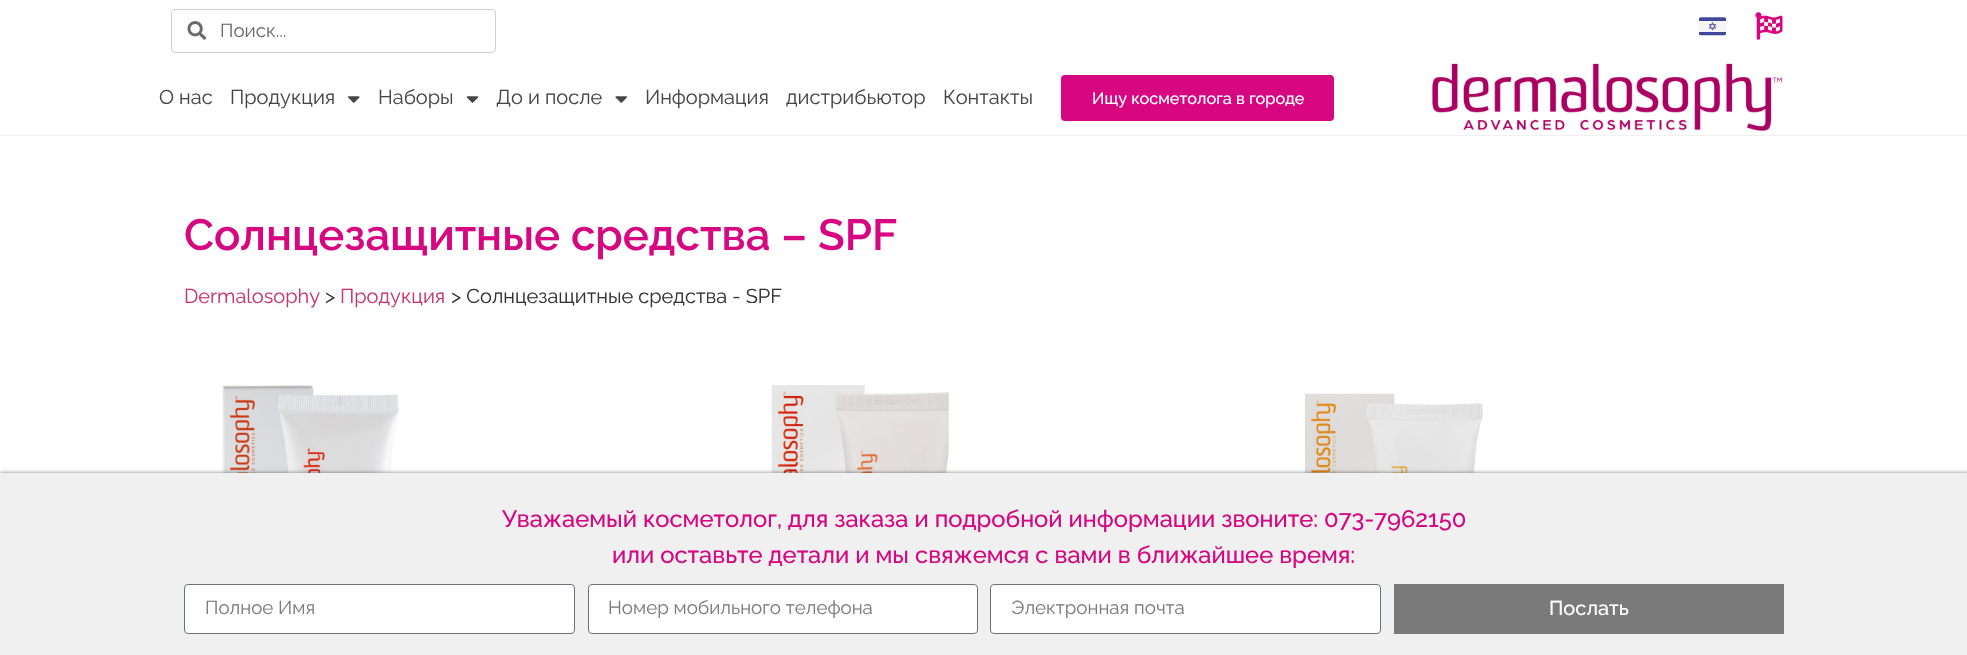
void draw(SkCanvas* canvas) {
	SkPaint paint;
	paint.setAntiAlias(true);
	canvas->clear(0xffffffff);
	paint.setStroke(true);
	paint.setStrokeWidth(1);
	paint.setColor(0xffcecece);
	canvas->drawRoundRect(SkRect::MakeXYWH(171.5, 9.5, 324, 43), 3.5, 3.5, paint);
	canvas->drawImageRect(SkImages::DeferredFromEncodedData(SkData::MakeFromFileName("img1.png")), SkRect::MakeXYWH(187, 21, 20, 19), SkSamplingOptions());
	SkFont f1(fontMgr->matchFamilyStyle("Raleway", SkFontStyle::Normal()), 18.75);
	f1.setSubpixel(true);
	paint.setStroke(false);
	paint.setColor(0xff6a6a6a);
	canvas->drawString("Поиск...", 220, 37, f1, paint);
	canvas->drawImageRect(SkImages::DeferredFromEncodedData(SkData::MakeFromFileName("img2.png")), SkRect::MakeXYWH(1699, 17, 27, 19), SkSamplingOptions());
	canvas->drawImageRect(SkImages::DeferredFromEncodedData(SkData::MakeFromFileName("img3.png")), SkRect::MakeXYWH(1755, 12, 28, 28), SkSamplingOptions());
	paint.setColor(0xfff0f0f0);
	canvas->drawRect(SkRect::MakeXYWH(0, 135, 1967, 1), paint);
	SkFont f2(fontMgr->matchFamilyStyle("Raleway", SkFontStyle::Normal()), 20);
	f2.setSubpixel(true);
	paint.setColor(0xff474646);
	canvas->drawString("О нас", 159, 104, f2, paint);
	canvas->drawString("Продукция", 230, 104, f2, paint);
	canvas->drawImageRect(SkImages::DeferredFromEncodedData(SkData::MakeFromFileName("img4.png")), SkRect::MakeXYWH(348, 96, 12, 7), SkSamplingOptions());
	canvas->drawString("Наборы", 378, 104, f2, paint);
	canvas->drawImageRect(SkImages::DeferredFromEncodedData(SkData::MakeFromFileName("img5.png")), SkRect::MakeXYWH(466, 96, 13, 7), SkSamplingOptions());
	canvas->drawString("До и после", 496, 104, f2, paint);
	canvas->drawImageRect(SkImages::DeferredFromEncodedData(SkData::MakeFromFileName("img6.png")), SkRect::MakeXYWH(615, 96, 12, 7), SkSamplingOptions());
	canvas->drawString("Информация", 645, 104, f2, paint);
	canvas->drawString("дистрибьютор", 786, 104, f2, paint);
	canvas->drawString("Контакты", 943, 104, f2, paint);
	paint.setColor(0xffd70681);
	canvas->drawRoundRect(SkRect::MakeXYWH(1061, 75, 273, 46), 4, 4, paint);
	SkFont f3(fontMgr->matchFamilyStyle("Raleway", SkFontStyle(500, SkFontStyle::kNormal_Width, SkFontStyle::kUpright_Slant)), 16.25);
	f3.setSubpixel(true);
	paint.setColor(0xffffffff);
	canvas->drawString("Ищу косметолога в городе", 1092, 104, f3, paint);
	canvas->drawImageRect(SkImages::DeferredFromEncodedData(SkData::MakeFromFileName("img7.png")), SkRect::MakeXYWH(1432, 63, 351, 68), SkSamplingOptions());
	SkFont f4(fontMgr->matchFamilyStyle("Raleway", SkFontStyle(600, SkFontStyle::kNormal_Width, SkFontStyle::kUpright_Slant)), 43.75);
	f4.setSubpixel(true);
	paint.setColor(0xffd70681);
	canvas->drawString("Солнцезащитные средства – SPF", 184, 250, f4, paint);
	paint.setColor(0xffcc3366);
	canvas->drawString("Dermalosophy", 184, 303, f2, paint);
	paint.setColor(0xff333333);
	canvas->drawString(">", 325, 303, f2, paint);
	paint.setColor(0xffcc3366);
	canvas->drawString("Продукция", 340, 303, f2, paint);
	paint.setColor(0xff333333);
	canvas->drawString("> Солнцезащитные средства - SPF", 451, 303, f2, paint);
	canvas->drawImageRect(SkImages::DeferredFromEncodedData(SkData::MakeFromFileName("img8.png")), SkRect::MakeXYWH(222, 384, 177, 89), SkSamplingOptions());
	canvas->drawImageRect(SkImages::DeferredFromEncodedData(SkData::MakeFromFileName("img9.png")), SkRect::MakeXYWH(771, 385, 178, 88), SkSamplingOptions());
	canvas->drawImageRect(SkImages::DeferredFromEncodedData(SkData::MakeFromFileName("img10.png")), SkRect::MakeXYWH(1304, 393, 179, 80), SkSamplingOptions());
	paint.setColor(0x80000000);
	paint.setMaskFilter(SkMaskFilter::MakeBlur(kNormal_SkBlurStyle, 2));
	canvas->drawRect(SkRect::MakeXYWH(0, 473, 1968, 182), paint);
	paint.setMaskFilter(nullptr);
	paint.setColor(0xfff0f0f0);
	canvas->drawRect(SkRect::MakeXYWH(0, 473, 1967, 182), paint);
	SkFont f5(fontMgr->matchFamilyStyle("Raleway", SkFontStyle(500, SkFontStyle::kNormal_Width, SkFontStyle::kUpright_Slant)), 23.75);
	f5.setSubpixel(true);
	paint.setColor(0xffd70681);
	canvas->drawString("Уважаемый косметолог, для заказа и подробной информации звоните: 073-7962150", 502, 527, f5, paint);
	canvas->drawString("или оставьте детали и мы свяжемся с вами в ближайшее время:", 612, 563, f5, paint);
	paint.setColor(0xffffffff);
	canvas->drawRoundRect(SkRect::MakeXYWH(184.5, 584.5, 390, 49), 3.5, 3.5, paint);
	paint.setStroke(true);
	paint.setColor(0xff69727d);
	canvas->drawRoundRect(SkRect::MakeXYWH(184.5, 584.5, 390, 49), 3.5, 3.5, paint);
	paint.setStroke(false);
	paint.setColor(0xff7b7b7b);
	canvas->drawString("Полное Имя", 205, 614, f1, paint);
	paint.setColor(0xffffffff);
	canvas->drawRoundRect(SkRect::MakeXYWH(588.5, 584.5, 389, 49), 3.5, 3.5, paint);
	paint.setStroke(true);
	paint.setColor(0xff69727d);
	canvas->drawRoundRect(SkRect::MakeXYWH(588.5, 584.5, 389, 49), 3.5, 3.5, paint);
	paint.setStroke(false);
	paint.setColor(0xff7b7b7b);
	canvas->drawString("Номер мобильного телефона", 608, 614, f1, paint);
	paint.setColor(0xffffffff);
	canvas->drawRoundRect(SkRect::MakeXYWH(990.5, 584.5, 390, 49), 3.5, 3.5, paint);
	paint.setStroke(true);
	paint.setColor(0xff69727d);
	canvas->drawRoundRect(SkRect::MakeXYWH(990.5, 584.5, 390, 49), 3.5, 3.5, paint);
	paint.setStroke(false);
	paint.setColor(0xff7b7b7b);
	canvas->drawString("Электронная почта", 1011, 614, f1, paint);
	paint.setColor(0xff7a7a7a);
	canvas->drawRect(SkRect::MakeXYWH(1394, 584, 390, 50), paint);
	SkFont f6(fontMgr->matchFamilyStyle("Raleway", SkFontStyle(500, SkFontStyle::kNormal_Width, SkFontStyle::kUpright_Slant)), 20);
	f6.setSubpixel(true);
	paint.setColor(0xffffffff);
	canvas->drawString("Послать", 1549, 615, f6, paint);
}
